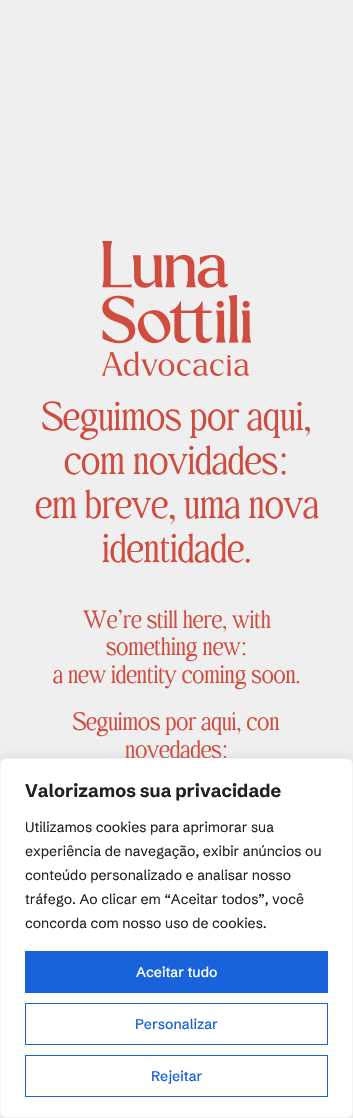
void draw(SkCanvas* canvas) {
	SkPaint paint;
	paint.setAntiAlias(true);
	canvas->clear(0xffefefef);
	canvas->drawImageRect(SkImages::DeferredFromEncodedData(SkData::MakeFromFileName("img1.png")), SkRect::MakeXYWH(102, 241, 149, 135), SkSamplingOptions());
	SkFont f1(fontMgr->matchFamilyStyle("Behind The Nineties", SkFontStyle::Normal()), 40);
	f1.setSubpixel(true);
	paint.setColor(0xffd04c3f);
	canvas->drawString("Seguimos por aqui,", 42, 430, f1, paint);
	canvas->drawString("com novidades:", 64, 474, f1, paint);
	canvas->drawString("em breve, uma nova", 35, 518, f1, paint);
	canvas->drawString("identidade.", 102, 562, f1, paint);
	SkFont f2(fontMgr->matchFamilyStyle("Behind The Nineties", SkFontStyle::Normal()), 25);
	f2.setSubpixel(true);
	canvas->drawString("We’re still here, with", 83, 628, f2, paint);
	canvas->drawString("something new:", 106, 655, f2, paint);
	canvas->drawString("a new identity coming soon.", 53, 683, f2, paint);
	canvas->drawString("Seguimos por aquí, con", 73, 730, f2, paint);
	canvas->drawString("novedades:", 125, 758, f2, paint);
	paint.setColor(0x4dacabab);
	paint.setMaskFilter(SkMaskFilter::MakeBlur(kNormal_SkBlurStyle, 5));
	canvas->drawRoundRect(SkRect::MakeXYWH(0, 757, 353, 360), 6, 6, paint);
	paint.setMaskFilter(nullptr);
	paint.setColor(0xffffffff);
	canvas->drawRoundRect(SkRect::MakeXYWH(0.5, 758.5, 352, 359), 5.5, 5.5, paint);
	paint.setStroke(true);
	paint.setStrokeWidth(1);
	paint.setColor(0xfff4f4f4);
	canvas->drawRoundRect(SkRect::MakeXYWH(0.5, 758.5, 352, 359), 5.5, 5.5, paint);
	SkFont f3(fontMgr->matchFamilyStyle("Schibsted Grotesk", SkFontStyle::Bold()), 18);
	f3.setSubpixel(true);
	paint.setStroke(false);
	paint.setColor(0xff212121);
	canvas->drawString("Valorizamos sua privacidade", 25, 797, f3, paint);
	SkFont f4(fontMgr->matchFamilyStyle("Schibsted Grotesk", SkFontStyle::Normal()), 14);
	f4.setSubpixel(true);
	canvas->drawString("Utilizamos cookies para aprimorar sua", 25, 832, f4, paint);
	canvas->drawString("experiência de navegação, exibir anúncios ou", 25, 856, f4, paint);
	canvas->drawString("conteúdo personalizado e analisar nosso", 25, 880, f4, paint);
	canvas->drawString("tráfego. Ao clicar em “Aceitar todos”, você", 25, 904, f4, paint);
	canvas->drawString("concorda com nosso uso de cookies.", 25, 928, f4, paint);
	paint.setColor(0xff1863dc);
	canvas->drawRect(SkRect::MakeXYWH(25, 951, 303, 42), paint);
	SkFont f5(fontMgr->matchFamilyStyle("Schibsted Grotesk", SkFontStyle(500, SkFontStyle::kNormal_Width, SkFontStyle::kUpright_Slant)), 14);
	f5.setSubpixel(true);
	paint.setColor(0xffffffff);
	canvas->drawString("Aceitar tudo", 136, 977, f5, paint);
	paint.setStroke(true);
	paint.setColor(0xff1863dc);
	canvas->drawRect(SkRect::MakeXYWH(25.5, 1003.5, 302, 41), paint);
	paint.setStroke(false);
	canvas->drawString("Personalizar", 135, 1029, f5, paint);
	paint.setStroke(true);
	canvas->drawRect(SkRect::MakeXYWH(25.5, 1055.5, 302, 41), paint);
	paint.setStroke(false);
	canvas->drawString("Rejeitar", 151, 1081, f5, paint);
}
